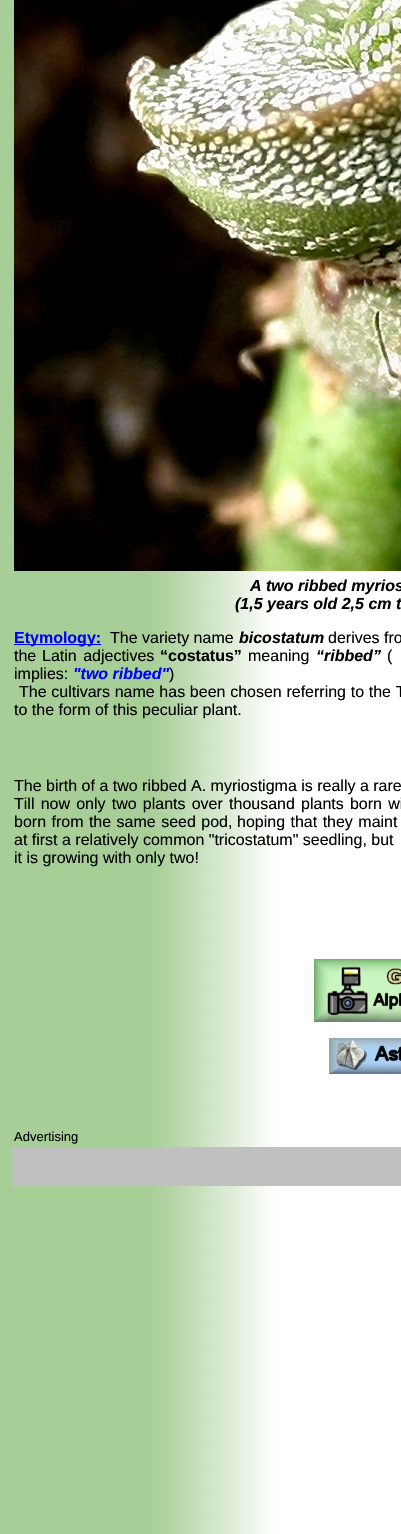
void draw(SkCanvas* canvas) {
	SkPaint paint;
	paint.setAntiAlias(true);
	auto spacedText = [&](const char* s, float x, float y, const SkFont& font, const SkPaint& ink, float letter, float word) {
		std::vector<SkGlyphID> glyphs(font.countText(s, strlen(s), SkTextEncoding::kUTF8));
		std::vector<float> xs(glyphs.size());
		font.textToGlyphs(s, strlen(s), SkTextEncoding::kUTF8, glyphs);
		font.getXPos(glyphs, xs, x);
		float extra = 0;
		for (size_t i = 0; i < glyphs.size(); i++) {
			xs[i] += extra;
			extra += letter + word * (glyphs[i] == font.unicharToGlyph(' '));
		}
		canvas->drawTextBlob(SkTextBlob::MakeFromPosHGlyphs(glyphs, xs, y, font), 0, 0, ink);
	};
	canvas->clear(0xffffffff);
	canvas->drawImageRect(SkImages::DeferredFromEncodedData(SkData::MakeFromFileName("img1.png")), SkRect::MakeXYWH(0, 0, 273, 1534), SkSamplingOptions());
	canvas->drawImageRect(SkImages::DeferredFromEncodedData(SkData::MakeFromFileName("img2.png")), SkRect::MakeXYWH(14, 0, 387, 571), SkSamplingOptions());
	SkFont f1(fontMgr->matchFamilyStyle("Liberation Sans", SkFontStyle::BoldItalic()), 16);
	f1.setSubpixel(true);
	paint.setColor(0xff000000);
	canvas->drawString("A two ribbed myrios", 250, 591, f1, paint);
	canvas->drawString("(1,5 years old 2,5 cm t", 235, 609, f1, paint);
	paint.setColor(0xff0000ff);
	canvas->drawRect(SkRect::MakeXYWH(14, 644, 87, 1), paint);
	SkFont f2(fontMgr->matchFamilyStyle("Liberation Sans", SkFontStyle::Bold()), 16);
	f2.setSubpixel(true);
	canvas->drawString("Etymology:", 14, 643, f2, paint);
	SkFont f3(fontMgr->matchFamilyStyle("Liberation Sans", SkFontStyle::Normal()), 16);
	f3.setSubpixel(true);
	paint.setColor(0xff000000);
	canvas->drawString("The variety name", 110, 643, f3, paint);
	canvas->drawString("bicostatum", 239, 643, f1, paint);
	canvas->drawString("derives fro", 328, 643, f3, paint);
	canvas->drawString("the", 14, 661, f3, paint);
	spacedText("Latin adjectives", 42, 661, f3, paint, 0, 2);
	canvas->drawString("“costatus”", 160, 661, f2, paint);
	canvas->drawString("meaning", 248, 661, f3, paint);
	canvas->drawString("“ribbed”", 316, 661, f1, paint);
	canvas->drawString("(", 387, 661, f3, paint);
	canvas->drawString("implies:", 14, 679, f3, paint);
	paint.setColor(0xff0000ff);
	canvas->drawString("\"two ribbed\"", 73, 679, f1, paint);
	paint.setColor(0xff000000);
	canvas->drawString(")", 169, 679, f3, paint);
	spacedText("The cultivars name has been chosen referring to the T", 19, 697, f3, paint, 0, 0.25);
	canvas->drawString("to the form of this peculiar plant.", 14, 715, f3, paint);
	canvas->drawString("The birth of a two ribbed A. myriostigma is really a rare", 14, 791, f3, paint);
	spacedText("Till now only two plants over thousand plants born wi", 14, 809, f3, paint, 0, 1.75);
	spacedText("born from the same seed pod,", 14, 827, f3, paint, 0, 1);
	spacedText("hoping that they maint", 237, 827, f3, paint, 0, 1);
	canvas->drawString("at first a relatively common \"tricostatum\" seedling, but", 14, 845, f3, paint);
	canvas->drawString("it is growing with only two!", 14, 863, f3, paint);
	canvas->drawImageRect(SkImages::DeferredFromEncodedData(SkData::MakeFromFileName("img3.png")), SkRect::MakeXYWH(314, 959, 87, 63), SkSamplingOptions());
	canvas->drawImageRect(SkImages::DeferredFromEncodedData(SkData::MakeFromFileName("img4.png")), SkRect::MakeXYWH(329, 1038, 72, 36), SkSamplingOptions());
	SkFont f4(fontMgr->matchFamilyStyle("Liberation Sans", SkFontStyle::Normal()), 13);
	f4.setSubpixel(true);
	canvas->drawString("Advertising", 14, 1141, f4, paint);
	paint.setColor(0xffc0c0c0);
	canvas->drawRect(SkRect::MakeXYWH(11, 1147, 390, 39), paint);
}
